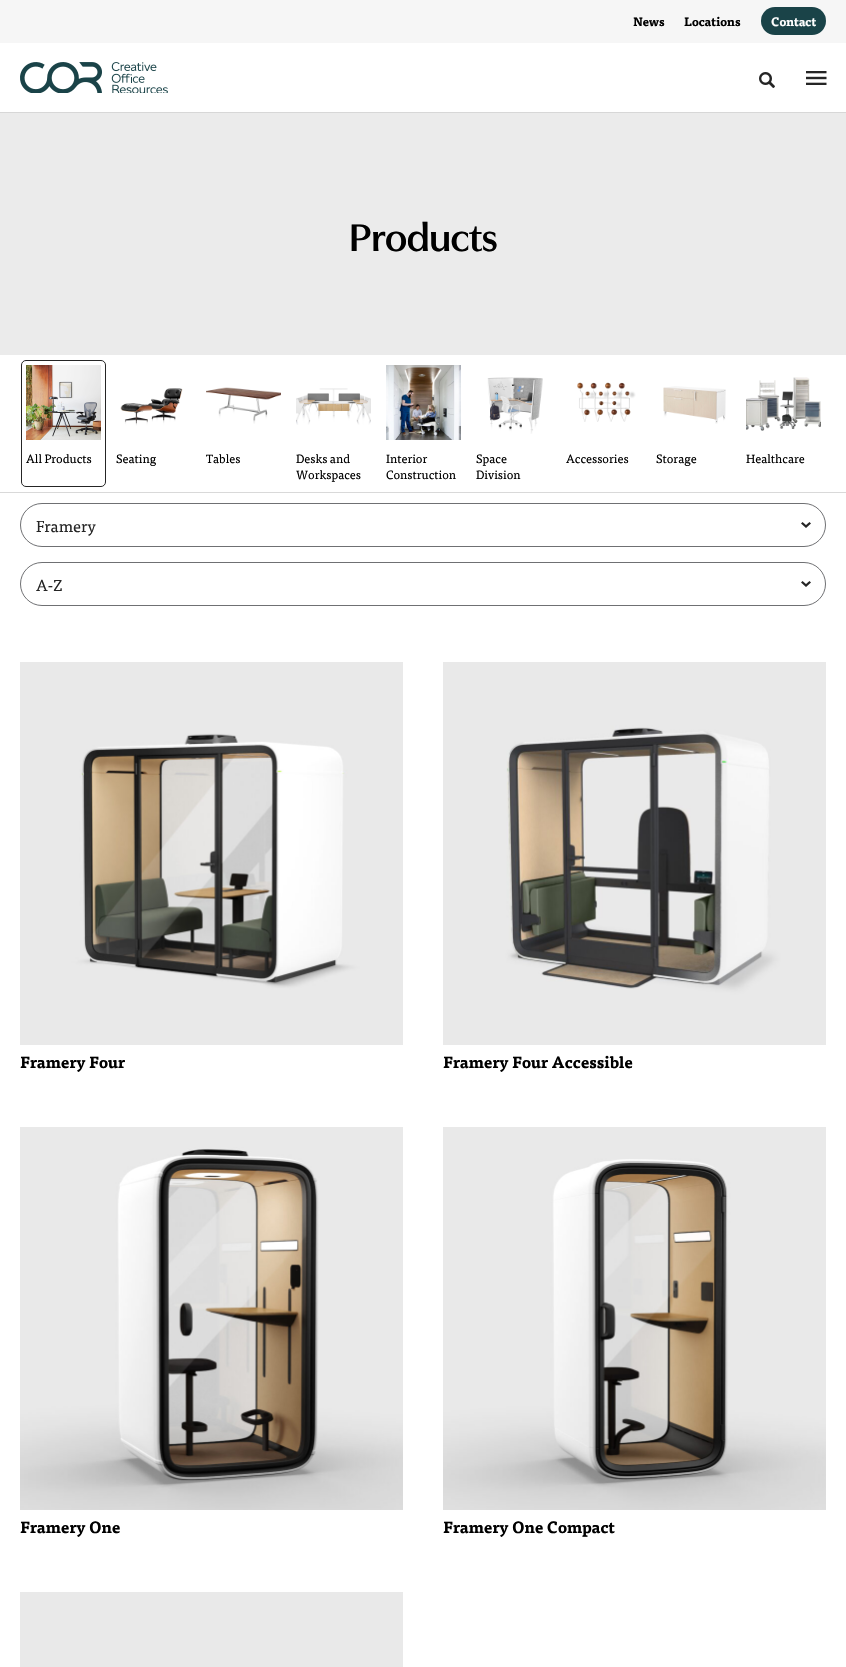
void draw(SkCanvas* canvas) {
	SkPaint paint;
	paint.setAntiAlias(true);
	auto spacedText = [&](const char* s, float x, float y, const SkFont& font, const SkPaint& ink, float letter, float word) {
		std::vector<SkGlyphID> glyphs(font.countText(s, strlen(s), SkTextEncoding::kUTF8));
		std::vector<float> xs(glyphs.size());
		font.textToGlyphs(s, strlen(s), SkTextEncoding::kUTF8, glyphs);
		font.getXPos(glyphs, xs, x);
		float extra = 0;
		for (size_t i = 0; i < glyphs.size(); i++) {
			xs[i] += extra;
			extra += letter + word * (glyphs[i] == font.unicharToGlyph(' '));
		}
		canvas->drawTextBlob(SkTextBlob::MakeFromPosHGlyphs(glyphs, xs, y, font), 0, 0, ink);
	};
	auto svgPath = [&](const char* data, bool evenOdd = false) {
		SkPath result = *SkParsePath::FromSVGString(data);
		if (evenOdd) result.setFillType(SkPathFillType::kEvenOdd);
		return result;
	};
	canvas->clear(0xffffffff);
	paint.setColor(0xfff6f6f6);
	canvas->drawRect(SkRect::MakeXYWH(0, 0, 846, 43), paint);
	SkFont f1(fontMgr->matchFamilyStyle("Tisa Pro", SkFontStyle::Bold()), 12);
	f1.setSubpixel(true);
	paint.setColor(0xff000000);
	canvas->drawString("News", 633, 26, f1, paint);
	canvas->drawString("Locations", 684, 26, f1, paint);
	paint.setColor(0xff1a4348);
	canvas->drawRoundRect(SkRect::MakeXYWH(761, 7, 65, 28), 14, 14, paint);
	paint.setColor(0xffffffff);
	canvas->drawString("Contact", 771, 26, f1, paint);
	paint.setColor(0xffd7d7d7);
	canvas->drawRect(SkRect::MakeXYWH(0, 112, 846, 1), paint);
	canvas->drawImageRect(SkImages::DeferredFromEncodedData(SkData::MakeFromFileName("img1.png")), SkRect::MakeXYWH(20, 62, 148, 31), SkSamplingOptions());
	canvas->drawImageRect(SkImages::DeferredFromEncodedData(SkData::MakeFromFileName("img2.png")), SkRect::MakeXYWH(759, 72, 16, 16), SkSamplingOptions());
	canvas->drawImageRect(SkImages::DeferredFromEncodedData(SkData::MakeFromFileName("img3.png")), SkRect::MakeXYWH(806, 71, 21, 14), SkSamplingOptions());
	paint.setColor(0xffebebeb);
	canvas->drawRect(SkRect::MakeXYWH(0, 113, 846, 242), paint);
	SkFont f2(fontMgr->matchFamilyStyle("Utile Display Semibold", SkFontStyle(600, SkFontStyle::kNormal_Width, SkFontStyle::kUpright_Slant)), 40);
	f2.setSubpixel(true);
	paint.setColor(0xff000000);
	spacedText("Products", 349, 251, f2, paint, -0.5, 0);
	paint.setColor(0xffd9d9d9);
	canvas->drawRect(SkRect::MakeXYWH(0, 492, 846, 1), paint);
	canvas->drawImageRect(SkImages::DeferredFromEncodedData(SkData::MakeFromFileName("img4.png")), SkRect::MakeXYWH(26, 365, 75, 75), SkSamplingOptions());
	paint.setStroke(true);
	paint.setStrokeWidth(1);
	paint.setColor(0xff252525);
	canvas->drawRoundRect(SkRect::MakeXYWH(21.5, 360.5, 84, 126), 4.5, 4.5, paint);
	SkFont f3(fontMgr->matchFamilyStyle("Tisa Pro", SkFontStyle::Normal()), 12);
	f3.setSubpixel(true);
	paint.setStroke(false);
	paint.setColor(0xff000000);
	canvas->drawString("All Products", 26, 463, f3, paint);
	canvas->drawImageRect(SkImages::DeferredFromEncodedData(SkData::MakeFromFileName("img5.png")), SkRect::MakeXYWH(120, 388, 63, 38), SkSamplingOptions());
	canvas->drawString("Seating", 116, 463, f3, paint);
	canvas->drawImageRect(SkImages::DeferredFromEncodedData(SkData::MakeFromFileName("img6.png")), SkRect::MakeXYWH(206, 387, 75, 37), SkSamplingOptions());
	canvas->drawString("Tables", 206, 463, f3, paint);
	canvas->drawImageRect(SkImages::DeferredFromEncodedData(SkData::MakeFromFileName("img7.png")), SkRect::MakeXYWH(296, 388, 75, 37), SkSamplingOptions());
	canvas->drawString("Desks and", 296, 463, f3, paint);
	canvas->drawString("Workspaces", 296, 479, f3, paint);
	canvas->drawImageRect(SkImages::DeferredFromEncodedData(SkData::MakeFromFileName("img8.png")), SkRect::MakeXYWH(386, 365, 75, 75), SkSamplingOptions());
	canvas->drawString("Interior", 386, 463, f3, paint);
	canvas->drawString("Construction", 386, 479, f3, paint);
	canvas->drawImageRect(SkImages::DeferredFromEncodedData(SkData::MakeFromFileName("img9.png")), SkRect::MakeXYWH(487, 377, 56, 57), SkSamplingOptions());
	canvas->drawString("Space", 476, 463, f3, paint);
	canvas->drawString("Division", 476, 479, f3, paint);
	canvas->drawImageRect(SkImages::DeferredFromEncodedData(SkData::MakeFromFileName("img10.png")), SkRect::MakeXYWH(577, 382, 59, 40), SkSamplingOptions());
	canvas->drawString("Accessories", 566, 463, f3, paint);
	canvas->drawImageRect(SkImages::DeferredFromEncodedData(SkData::MakeFromFileName("img11.png")), SkRect::MakeXYWH(663, 386, 63, 38), SkSamplingOptions());
	canvas->drawString("Storage", 656, 463, f3, paint);
	canvas->drawImageRect(SkImages::DeferredFromEncodedData(SkData::MakeFromFileName("img12.png")), SkRect::MakeXYWH(746, 377, 75, 54), SkSamplingOptions());
	canvas->drawString("Healthcare", 746, 463, f3, paint);
	paint.setStroke(true);
	paint.setColor(0xff6f7073);
	canvas->drawRoundRect(SkRect::MakeXYWH(20.5, 503.5, 805, 43), 21.5, 21.5, paint);
	SkFont f4(fontMgr->matchFamilyStyle("Tisa Pro", SkFontStyle::Normal()), 16);
	f4.setSubpixel(true);
	paint.setStroke(false);
	paint.setColor(0xff252525);
	canvas->drawString("Framery", 36, 532, f4, paint);
	canvas->drawPath(svgPath("M802.5 522L801 523.5L806 528L811 523.5L809.5 522L806 525Z", true), paint);
	paint.setStroke(true);
	paint.setColor(0xff6f7073);
	canvas->drawRoundRect(SkRect::MakeXYWH(20.5, 562.5, 805, 43), 21.5, 21.5, paint);
	paint.setStroke(false);
	paint.setColor(0xff252525);
	canvas->drawString("A-Z", 36, 591, f4, paint);
	canvas->drawPath(svgPath("M802.5 581L801 582.5L806 587L811 582.5L809.5 581L806 584Z", true), paint);
	canvas->drawImageRect(SkImages::DeferredFromEncodedData(SkData::MakeFromFileName("img13.png")), SkRect::MakeXYWH(20, 662, 383, 383), SkSamplingOptions());
	SkFont f5(fontMgr->matchFamilyStyle("Tisa Pro", SkFontStyle::Bold()), 16);
	f5.setSubpixel(true);
	paint.setColor(0xff000000);
	canvas->drawString("Framery Four", 20, 1068, f5, paint);
	canvas->drawImageRect(SkImages::DeferredFromEncodedData(SkData::MakeFromFileName("img14.png")), SkRect::MakeXYWH(443, 662, 383, 383), SkSamplingOptions());
	canvas->drawString("Framery Four Accessible", 443, 1068, f5, paint);
	canvas->drawImageRect(SkImages::DeferredFromEncodedData(SkData::MakeFromFileName("img15.png")), SkRect::MakeXYWH(20, 1127, 383, 383), SkSamplingOptions());
	canvas->drawString("Framery One", 20, 1533, f5, paint);
	canvas->drawImageRect(SkImages::DeferredFromEncodedData(SkData::MakeFromFileName("img16.png")), SkRect::MakeXYWH(443, 1127, 383, 383), SkSamplingOptions());
	canvas->drawString("Framery One Compact", 443, 1533, f5, paint);
	paint.setColor(0xffe9e9e9);
	canvas->drawRect(SkRect::MakeXYWH(20, 1592, 383, 75), paint);
}
